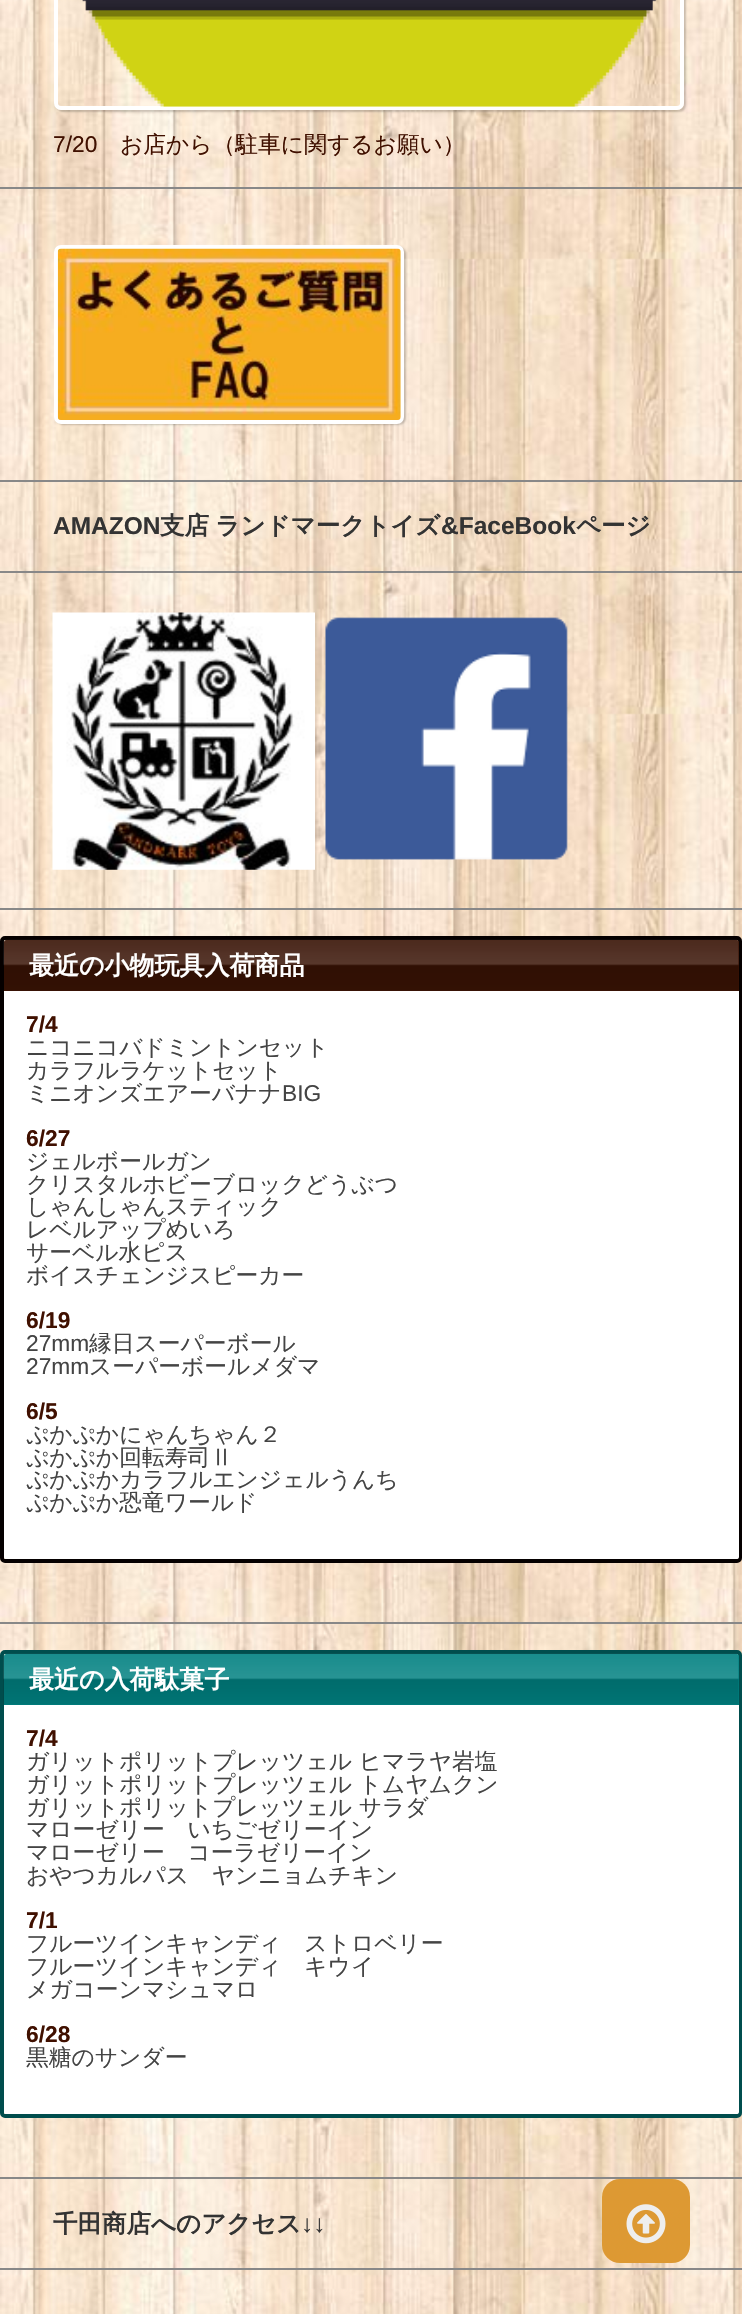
void draw(SkCanvas* canvas) {
	SkPaint paint;
	paint.setAntiAlias(true);
	auto spacedText = [&](const char* s, float x, float y, const SkFont& font, const SkPaint& ink, float letter, float word) {
		std::vector<SkGlyphID> glyphs(font.countText(s, strlen(s), SkTextEncoding::kUTF8));
		std::vector<float> xs(glyphs.size());
		font.textToGlyphs(s, strlen(s), SkTextEncoding::kUTF8, glyphs);
		font.getXPos(glyphs, xs, x);
		float extra = 0;
		for (size_t i = 0; i < glyphs.size(); i++) {
			xs[i] += extra;
			extra += letter + word * (glyphs[i] == font.unicharToGlyph(' '));
		}
		canvas->drawTextBlob(SkTextBlob::MakeFromPosHGlyphs(glyphs, xs, y, font), 0, 0, ink);
	};
	auto svgPath = [&](const char* data, bool evenOdd = false) {
		SkPath result = *SkParsePath::FromSVGString(data);
		if (evenOdd) result.setFillType(SkPathFillType::kEvenOdd);
		return result;
	};
	canvas->clear(0xffffffff);
	canvas->drawImageRect(SkImages::DeferredFromEncodedData(SkData::MakeFromFileName("img1.png")), SkRect::MakeXYWH(0, 0, 742, 2314), SkSamplingOptions());
	canvas->save();
	canvas->clipPath(svgPath("M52 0H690V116H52ZM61-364H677C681-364 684-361 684-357V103C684 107 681 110 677 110H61C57 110 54 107 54 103V-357C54-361 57-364 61-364Z", true), true);
	paint.setColor(0x33000000);
	paint.setMaskFilter(SkMaskFilter::MakeBlur(kNormal_SkBlurStyle, 1));
	canvas->drawRoundRect(SkRect::MakeXYWH(56, -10, 630, 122), 7, 7, paint);
	paint.setMaskFilter(nullptr);
	canvas->restore();
	paint.setStroke(true);
	paint.setStrokeWidth(4);
	paint.setColor(0xffffffff);
	canvas->drawRoundRect(SkRect::MakeXYWH(56, -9, 626, 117), 5, 5, paint);
	canvas->drawImageRect(SkImages::DeferredFromEncodedData(SkData::MakeFromFileName("img2.png")), SkRect::MakeXYWH(82, 0, 575, 107), SkSamplingOptions());
	SkFont f1(fontMgr->matchFamilyStyle("Liberation Sans", SkFontStyle::Normal()), 22.75);
	f1.setSubpixel(true);
	paint.setStroke(false);
	paint.setColor(0xff401000);
	canvas->drawString("7/20", 53, 152, f1, paint);
	SkFont f2(fontMgr->matchFamilyStyle("WenQuanYi Zen Hei", SkFontStyle(500, SkFontStyle::kNormal_Width, SkFontStyle::kUpright_Slant)), 22.75);
	f2.setSubpixel(true);
	canvas->drawString("お店から（駐車に関するお願い）", 120, 152, f2, paint);
	paint.setColor(0xff888888);
	canvas->drawRect(SkRect::MakeXYWH(0, 187, 742, 2), paint);
	paint.setColor(0x33000000);
	paint.setMaskFilter(SkMaskFilter::MakeBlur(kNormal_SkBlurStyle, 1));
	canvas->drawRoundRect(SkRect::MakeXYWH(56, 247, 350, 178), 7, 7, paint);
	paint.setMaskFilter(nullptr);
	paint.setStroke(true);
	paint.setColor(0xffffffff);
	canvas->drawRoundRect(SkRect::MakeXYWH(56, 247, 346, 175), 5, 5, paint);
	canvas->drawImageRect(SkImages::DeferredFromEncodedData(SkData::MakeFromFileName("img3.png")), SkRect::MakeXYWH(57, 248, 344, 172), SkSamplingOptions());
	paint.setStroke(false);
	paint.setColor(0xff888888);
	canvas->drawRect(SkRect::MakeXYWH(0, 480, 742, 2), paint);
	canvas->drawRect(SkRect::MakeXYWH(0, 571, 742, 2), paint);
	SkFont f3(fontMgr->matchFamilyStyle("Liberation Sans", SkFontStyle::Bold()), 24.5);
	f3.setSubpixel(true);
	paint.setColor(0xff333333);
	canvas->drawString("AMAZON", 53, 534, f3, paint);
	SkFont f4(fontMgr->matchFamilyStyle("WenQuanYi Zen Hei", SkFontStyle::Bold()), 24.5);
	f4.setSubpixel(true);
	spacedText("支店 ランドマークトイズ", 160, 534, f4, paint, 0, -1);
	canvas->drawString("&FaceBook", 441, 534, f3, paint);
	canvas->drawString("ページ", 576, 534, f4, paint);
	canvas->drawImageRect(SkImages::DeferredFromEncodedData(SkData::MakeFromFileName("img4.png")), SkRect::MakeXYWH(52, 612, 263, 258), SkSamplingOptions());
	canvas->drawImageRect(SkImages::DeferredFromEncodedData(SkData::MakeFromFileName("img5.png")), SkRect::MakeXYWH(325, 617, 243, 243), SkSamplingOptions());
	paint.setColor(0xff888888);
	canvas->drawRect(SkRect::MakeXYWH(0, 908, 742, 2), paint);
	paint.setStroke(true);
	paint.setColor(0xff050000);
	canvas->drawRoundRect(SkRect::MakeXYWH(2, 938, 738, 623), 3, 3, paint);
	paint.setStroke(false);
	paint.setColor(0xff381204);
	canvas->drawPath(svgPath("M6 940H737C738 940 739 941 739 942V991H4V942C4 941 5 940 6 940Z"), paint);
	canvas->drawImageRect(SkImages::DeferredFromEncodedData(SkData::MakeFromFileName("img6.png")), SkRect::MakeXYWH(3, 939, 736, 51), SkSamplingOptions());
	SkFont f5(fontMgr->matchFamilyStyle("WenQuanYi Zen Hei", SkFontStyle::Bold()), 25);
	f5.setSubpixel(true);
	paint.setColor(0xffffffff);
	canvas->drawString("最近の小物玩具入荷商品", 29, 974, f5, paint);
	canvas->drawPath(svgPath("M4 991H739V1557C739 1558 738 1559 737 1559H6C5 1559 4 1558 4 1557Z"), paint);
	SkFont f6(fontMgr->matchFamilyStyle("Liberation Sans", SkFontStyle::Bold()), 22.75);
	f6.setSubpixel(true);
	paint.setColor(0xff401000);
	canvas->drawString("7/4", 26, 1032, f6, paint);
	paint.setColor(0xff444444);
	canvas->drawString("ニコニコバドミントンセット", 26, 1055, f2, paint);
	canvas->drawString("カラフルラケットセット", 26, 1078, f2, paint);
	canvas->drawString("ミニオンズエアーバナナ", 26, 1101, f2, paint);
	canvas->drawString("BIG", 282, 1101, f1, paint);
	paint.setColor(0xff401000);
	canvas->drawString("6/27", 26, 1146, f6, paint);
	paint.setColor(0xff444444);
	canvas->drawString("ジェルボールガン", 26, 1169, f2, paint);
	canvas->drawString("クリスタルホビーブロックどうぶつ", 26, 1192, f2, paint);
	canvas->drawString("しゃんしゃんスティック", 26, 1214, f2, paint);
	canvas->drawString("レベルアップめいろ", 26, 1237, f2, paint);
	canvas->drawString("サーベル水ピス", 26, 1260, f2, paint);
	canvas->drawString("ボイスチェンジスピーカー", 26, 1283, f2, paint);
	paint.setColor(0xff401000);
	canvas->drawString("6/19", 26, 1328, f6, paint);
	paint.setColor(0xff444444);
	canvas->drawString("27mm", 26, 1351, f1, paint);
	canvas->drawString("縁日スーパーボール", 89, 1351, f2, paint);
	canvas->drawString("27mm", 26, 1374, f1, paint);
	canvas->drawString("スーパーボールメダマ", 89, 1374, f2, paint);
	paint.setColor(0xff401000);
	canvas->drawString("6/5", 26, 1419, f6, paint);
	paint.setColor(0xff444444);
	canvas->drawString("ぷかぷかにゃんちゃん２", 26, 1442, f2, paint);
	canvas->drawString("ぷかぷか回転寿司Ⅱ", 26, 1465, f2, paint);
	canvas->drawString("ぷかぷかカラフルエンジェルうんち", 26, 1487, f2, paint);
	canvas->drawString("ぷかぷか恐竜ワールド", 26, 1510, f2, paint);
	paint.setColor(0xff888888);
	canvas->drawRect(SkRect::MakeXYWH(0, 1622, 742, 2), paint);
	paint.setStroke(true);
	paint.setColor(0xff004d4d);
	canvas->drawRoundRect(SkRect::MakeXYWH(2, 1652, 738, 464), 3, 3, paint);
	paint.setStroke(false);
	paint.setColor(0xff008080);
	canvas->drawPath(svgPath("M6 1654H737C738 1654 739 1655 739 1656V1705H4V1656C4 1655 5 1654 6 1654Z"), paint);
	canvas->drawImageRect(SkImages::DeferredFromEncodedData(SkData::MakeFromFileName("img7.png")), SkRect::MakeXYWH(3, 1653, 736, 52), SkSamplingOptions());
	paint.setColor(0xffffffff);
	canvas->drawString("最近の入荷駄菓子", 29, 1688, f5, paint);
	canvas->drawPath(svgPath("M4 1705H739V2112C739 2113 738 2114 737 2114H6C5 2114 4 2113 4 2112Z"), paint);
	paint.setColor(0xff401000);
	canvas->drawString("7/4", 26, 1746, f6, paint);
	paint.setColor(0xff444444);
	canvas->drawString("ガリットポリットプレッツェル ヒマラヤ岩塩", 26, 1769, f2, paint);
	canvas->drawString("ガリットポリットプレッツェル トムヤムクン", 26, 1792, f2, paint);
	canvas->drawString("ガリットポリットプレッツェル サラダ", 26, 1815, f2, paint);
	canvas->drawString("マローゼリー　いちごゼリーイン", 26, 1837, f2, paint);
	canvas->drawString("マローゼリー　コーラゼリーイン", 26, 1860, f2, paint);
	canvas->drawString("おやつカルパス　ヤンニョムチキン", 26, 1883, f2, paint);
	paint.setColor(0xff401000);
	canvas->drawString("7/1", 26, 1928, f6, paint);
	paint.setColor(0xff444444);
	canvas->drawString("フルーツインキャンディ　ストロベリー", 26, 1951, f2, paint);
	canvas->drawString("フルーツインキャンディ　キウイ", 26, 1974, f2, paint);
	canvas->drawString("メガコーンマシュマロ", 26, 1997, f2, paint);
	paint.setColor(0xff401000);
	canvas->drawString("6/28", 26, 2042, f6, paint);
	paint.setColor(0xff444444);
	canvas->drawString("黒糖のサンダー", 26, 2065, f2, paint);
	paint.setColor(0xff888888);
	canvas->drawRect(SkRect::MakeXYWH(0, 2177, 742, 2), paint);
	canvas->drawRect(SkRect::MakeXYWH(0, 2268, 742, 2), paint);
	paint.setColor(0xff333333);
	canvas->drawString("千田商店へのアクセス", 53, 2232, f4, paint);
	canvas->drawString("↓↓", 301, 2232, f3, paint);
	paint.setColor(0xffdd9933);
	canvas->drawRoundRect(SkRect::MakeXYWH(602, 2179, 88, 84), 18, 18, paint);
	canvas->drawImageRect(SkImages::DeferredFromEncodedData(SkData::MakeFromFileName("img8.png")), SkRect::MakeXYWH(626, 2204, 40, 40), SkSamplingOptions());
}
